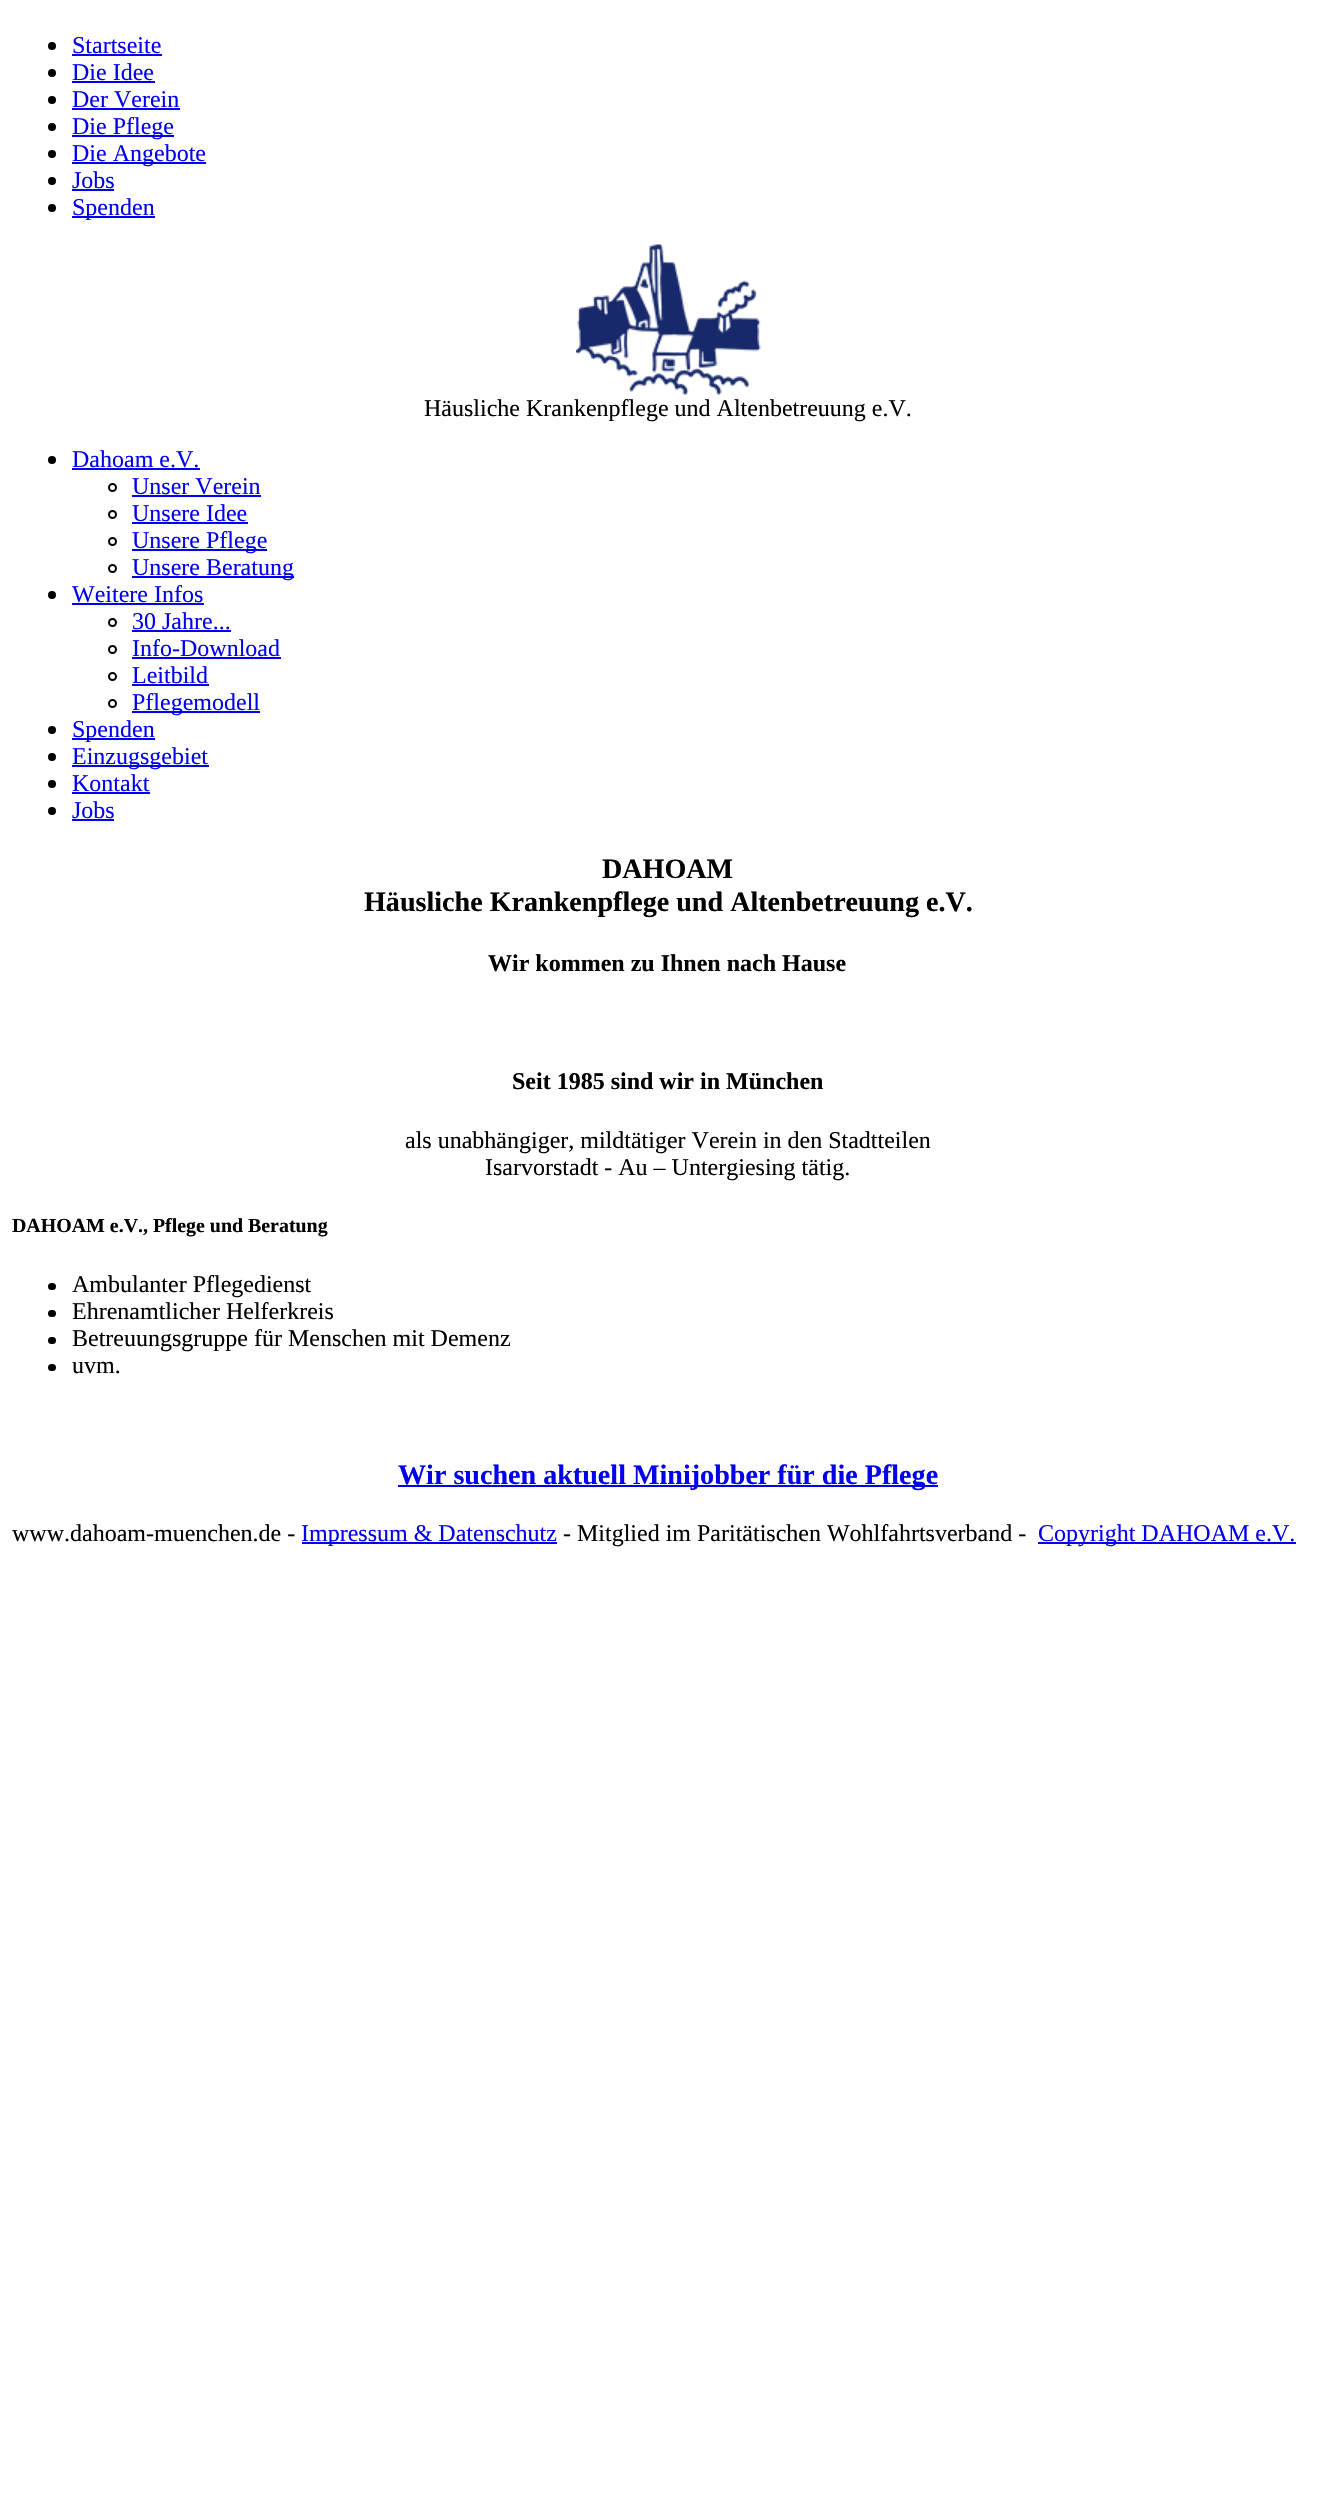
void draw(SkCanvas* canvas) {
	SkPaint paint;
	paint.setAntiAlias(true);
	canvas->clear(0xffffffff);
	paint.setColor(0xff000000);
	canvas->drawCircle(52, 46, 4, paint);
	SkFont f1(fontMgr->matchFamilyStyle("Liberation Serif", SkFontStyle::Normal()), 24);
	f1.setSubpixel(true);
	paint.setColor(0xff0000ee);
	canvas->drawString("Startseite", 72, 53, f1, paint);
	canvas->drawRect(SkRect::MakeXYWH(72, 54, 90, 2), paint);
	paint.setColor(0xff000000);
	canvas->drawCircle(52, 73, 4, paint);
	paint.setColor(0xff0000ee);
	canvas->drawString("Die Idee", 72, 80, f1, paint);
	canvas->drawRect(SkRect::MakeXYWH(72, 81, 83, 2), paint);
	paint.setColor(0xff000000);
	canvas->drawCircle(52, 100, 4, paint);
	paint.setColor(0xff0000ee);
	canvas->drawString("Der Verein", 72, 107, f1, paint);
	canvas->drawRect(SkRect::MakeXYWH(72, 108, 108, 2), paint);
	paint.setColor(0xff000000);
	canvas->drawCircle(52, 127, 4, paint);
	paint.setColor(0xff0000ee);
	canvas->drawRect(SkRect::MakeXYWH(72, 135, 102, 2), paint);
	canvas->drawString("Die Pflege", 72, 134, f1, paint);
	paint.setColor(0xff000000);
	canvas->drawCircle(52, 154, 4, paint);
	paint.setColor(0xff0000ee);
	canvas->drawRect(SkRect::MakeXYWH(72, 162, 134, 2), paint);
	canvas->drawString("Die Angebote", 72, 161, f1, paint);
	paint.setColor(0xff000000);
	canvas->drawCircle(52, 181, 4, paint);
	paint.setColor(0xff0000ee);
	canvas->drawString("Jobs", 72, 188, f1, paint);
	canvas->drawRect(SkRect::MakeXYWH(72, 189, 42, 2), paint);
	paint.setColor(0xff000000);
	canvas->drawCircle(52, 208, 4, paint);
	paint.setColor(0xff0000ee);
	canvas->drawRect(SkRect::MakeXYWH(72, 216, 83, 2), paint);
	canvas->drawString("Spenden", 72, 215, f1, paint);
	canvas->drawImageRect(SkImages::DeferredFromEncodedData(SkData::MakeFromFileName("img1.png")), SkRect::MakeXYWH(576, 244, 185, 151), SkSamplingOptions());
	paint.setColor(0xff000000);
	canvas->drawString("Häusliche Krankenpflege und Altenbetreuung e.V.", 424, 416, f1, paint);
	canvas->drawCircle(52, 460, 4, paint);
	paint.setColor(0xff0000ee);
	canvas->drawString("Dahoam e.V.", 72, 467, f1, paint);
	canvas->drawRect(SkRect::MakeXYWH(72, 468, 128, 2), paint);
	paint.setStroke(true);
	paint.setStrokeWidth(2);
	paint.setColor(0xff000000);
	canvas->drawCircle(112.5, 487.5, 3.5, paint);
	paint.setStroke(false);
	paint.setColor(0xff0000ee);
	canvas->drawString("Unser Verein", 132, 494, f1, paint);
	canvas->drawRect(SkRect::MakeXYWH(132, 495, 129, 2), paint);
	paint.setStroke(true);
	paint.setColor(0xff000000);
	canvas->drawCircle(112.5, 514.5, 3.5, paint);
	paint.setStroke(false);
	paint.setColor(0xff0000ee);
	canvas->drawString("Unsere Idee", 132, 521, f1, paint);
	canvas->drawRect(SkRect::MakeXYWH(132, 522, 116, 2), paint);
	paint.setStroke(true);
	paint.setColor(0xff000000);
	canvas->drawCircle(112.5, 541.5, 3.5, paint);
	paint.setStroke(false);
	paint.setColor(0xff0000ee);
	canvas->drawRect(SkRect::MakeXYWH(132, 549, 135, 2), paint);
	canvas->drawString("Unsere Pflege", 132, 548, f1, paint);
	paint.setStroke(true);
	paint.setColor(0xff000000);
	canvas->drawCircle(112.5, 568.5, 3.5, paint);
	paint.setStroke(false);
	paint.setColor(0xff0000ee);
	canvas->drawRect(SkRect::MakeXYWH(132, 576, 162, 2), paint);
	canvas->drawString("Unsere Beratung", 132, 575, f1, paint);
	paint.setColor(0xff000000);
	canvas->drawCircle(52, 595, 4, paint);
	paint.setColor(0xff0000ee);
	canvas->drawString("Weitere Infos", 72, 602, f1, paint);
	canvas->drawRect(SkRect::MakeXYWH(72, 603, 132, 2), paint);
	paint.setStroke(true);
	paint.setColor(0xff000000);
	canvas->drawCircle(112.5, 622.5, 3.5, paint);
	paint.setStroke(false);
	paint.setColor(0xff0000ee);
	canvas->drawString("30 Jahre...", 132, 629, f1, paint);
	canvas->drawRect(SkRect::MakeXYWH(132, 630, 99, 2), paint);
	paint.setStroke(true);
	paint.setColor(0xff000000);
	canvas->drawCircle(112.5, 649.5, 3.5, paint);
	paint.setStroke(false);
	paint.setColor(0xff0000ee);
	canvas->drawString("Info-Download", 132, 656, f1, paint);
	canvas->drawRect(SkRect::MakeXYWH(132, 657, 149, 2), paint);
	paint.setStroke(true);
	paint.setColor(0xff000000);
	canvas->drawCircle(112.5, 676.5, 3.5, paint);
	paint.setStroke(false);
	paint.setColor(0xff0000ee);
	canvas->drawString("Leitbild", 132, 683, f1, paint);
	canvas->drawRect(SkRect::MakeXYWH(132, 684, 77, 2), paint);
	paint.setStroke(true);
	paint.setColor(0xff000000);
	canvas->drawCircle(112.5, 703.5, 3.5, paint);
	paint.setStroke(false);
	paint.setColor(0xff0000ee);
	canvas->drawRect(SkRect::MakeXYWH(132, 711, 128, 2), paint);
	canvas->drawString("Pflegemodell", 132, 710, f1, paint);
	paint.setColor(0xff000000);
	canvas->drawCircle(52, 730, 4, paint);
	paint.setColor(0xff0000ee);
	canvas->drawRect(SkRect::MakeXYWH(72, 738, 83, 2), paint);
	canvas->drawString("Spenden", 72, 737, f1, paint);
	paint.setColor(0xff000000);
	canvas->drawCircle(52, 757, 4, paint);
	paint.setColor(0xff0000ee);
	canvas->drawRect(SkRect::MakeXYWH(72, 765, 137, 2), paint);
	canvas->drawString("Einzugsgebiet", 72, 764, f1, paint);
	paint.setColor(0xff000000);
	canvas->drawCircle(52, 784, 4, paint);
	paint.setColor(0xff0000ee);
	canvas->drawString("Kontakt", 72, 791, f1, paint);
	canvas->drawRect(SkRect::MakeXYWH(72, 792, 78, 2), paint);
	paint.setColor(0xff000000);
	canvas->drawCircle(52, 811, 4, paint);
	paint.setColor(0xff0000ee);
	canvas->drawString("Jobs", 72, 818, f1, paint);
	canvas->drawRect(SkRect::MakeXYWH(72, 819, 42, 2), paint);
	SkFont f2(fontMgr->matchFamilyStyle("Liberation Serif", SkFontStyle::Bold()), 28.1);
	f2.setSubpixel(true);
	paint.setColor(0xff000000);
	canvas->drawString("DAHOAM", 602, 878, f2, paint);
	canvas->drawString("Häusliche Krankenpflege und Altenbetreuung e.V.", 364, 911, f2, paint);
	SkFont f3(fontMgr->matchFamilyStyle("Liberation Serif", SkFontStyle::Bold()), 24);
	f3.setSubpixel(true);
	canvas->drawString("Wir kommen zu Ihnen nach Hause", 488, 971, f3, paint);
	canvas->drawString("Seit 1985 sind wir in München", 512, 1089, f3, paint);
	canvas->drawString("als unabhängiger, mildtätiger Verein in den Stadtteilen", 405, 1148, f1, paint);
	canvas->drawString("Isarvorstadt - Au – Untergiesing tätig.", 485, 1175, f1, paint);
	SkFont f4(fontMgr->matchFamilyStyle("Liberation Serif", SkFontStyle::Bold()), 19.9);
	f4.setSubpixel(true);
	canvas->drawString("DAHOAM e.V., Pflege und Beratung", 12, 1232, f4, paint);
	canvas->drawRoundRect(SkRect::MakeXYWH(48, 1283, 8, 7), 3.5, 3.5, paint);
	canvas->drawString("Ambulanter Pflegedienst", 72, 1292, f1, paint);
	canvas->drawRoundRect(SkRect::MakeXYWH(48, 1310, 8, 7), 3.5, 3.5, paint);
	canvas->drawString("Ehrenamtlicher Helferkreis", 72, 1319, f1, paint);
	canvas->drawRoundRect(SkRect::MakeXYWH(48, 1337, 8, 7), 3.5, 3.5, paint);
	canvas->drawString("Betreuungsgruppe für Menschen mit Demenz", 72, 1346, f1, paint);
	canvas->drawRoundRect(SkRect::MakeXYWH(48, 1364, 8, 7), 3.5, 3.5, paint);
	canvas->drawString("uvm.", 72, 1373, f1, paint);
	paint.setColor(0xff0000ee);
	canvas->drawRect(SkRect::MakeXYWH(398, 1485, 540, 2), paint);
	canvas->drawString("Wir suchen aktuell Minijobber für die Pflege", 398, 1484, f2, paint);
	paint.setColor(0xff000000);
	canvas->drawString("www.dahoam-muenchen.de -", 12, 1541, f1, paint);
	paint.setColor(0xff0000ee);
	canvas->drawRect(SkRect::MakeXYWH(302, 1542, 255, 2), paint);
	canvas->drawString("Impressum & Datenschutz", 301, 1541, f1, paint);
	paint.setColor(0xff000000);
	canvas->drawString("- Mitglied im Paritätischen Wohlfahrtsverband -", 563, 1541, f1, paint);
	paint.setColor(0xff0000ee);
	canvas->drawRect(SkRect::MakeXYWH(1038, 1542, 258, 2), paint);
	canvas->drawString("Copyright DAHOAM e.V.", 1038, 1541, f1, paint);
}
